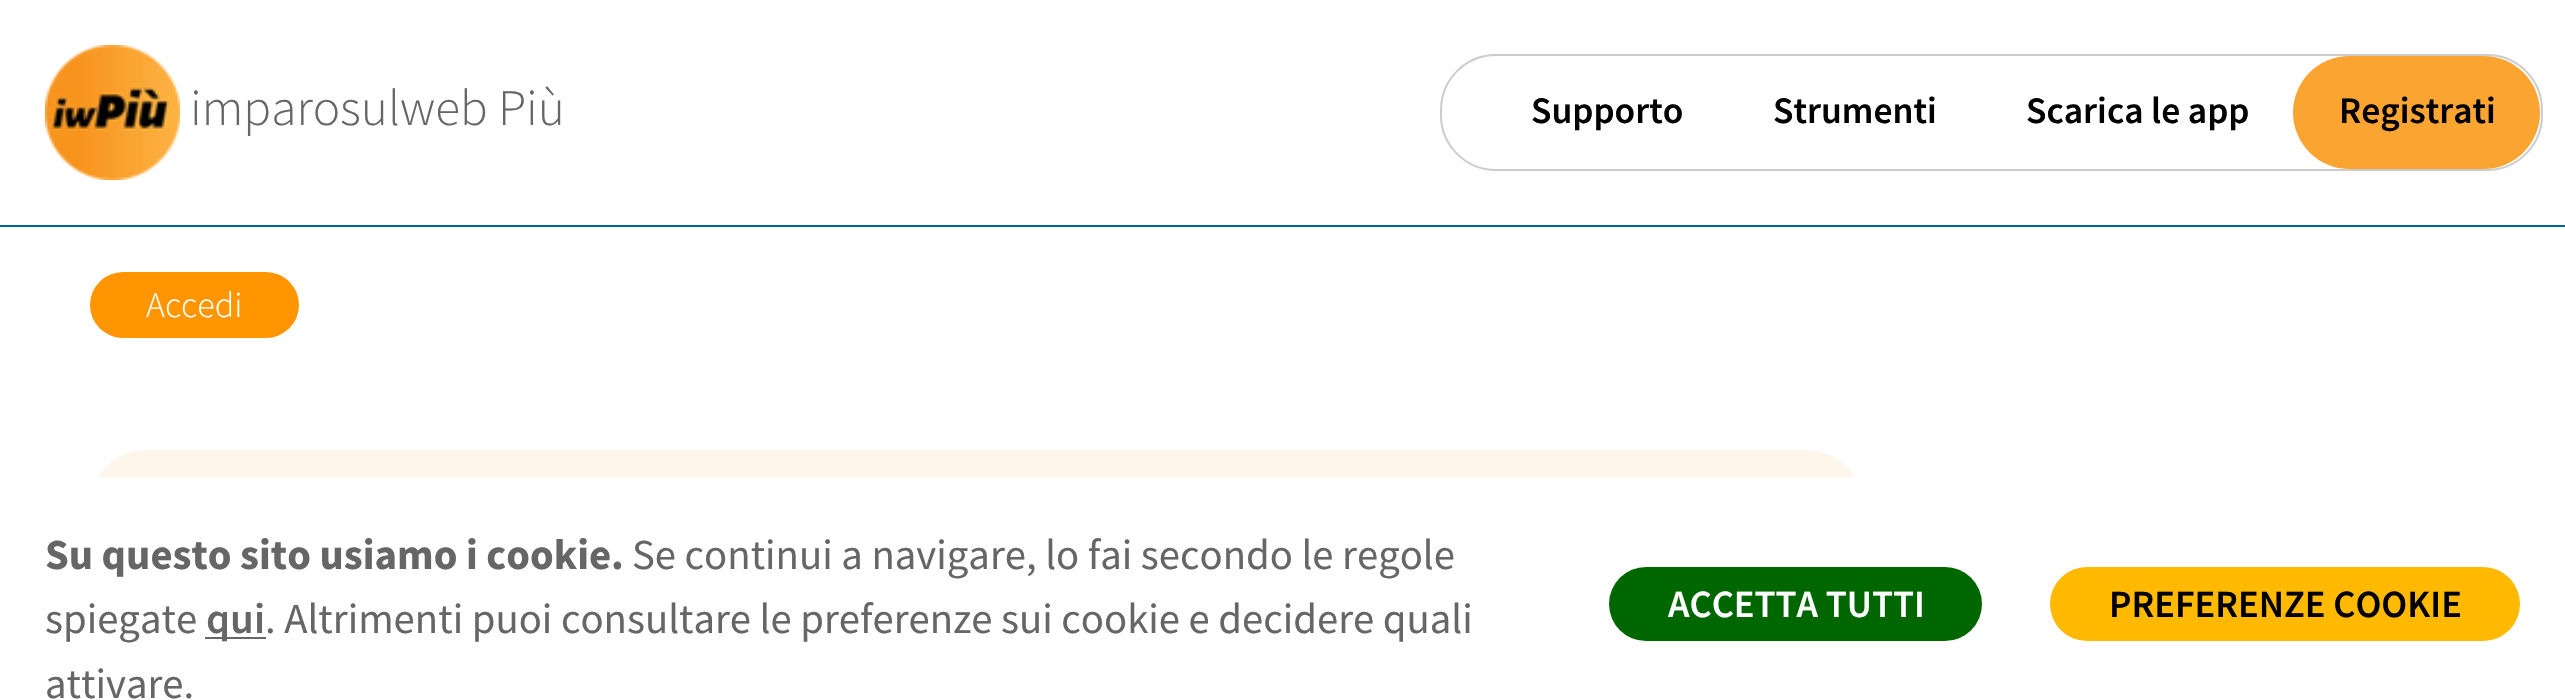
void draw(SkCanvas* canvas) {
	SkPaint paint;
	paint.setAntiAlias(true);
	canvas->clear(0xffffffff);
	paint.setColor(0xff0066a0);
	canvas->drawRect(SkRect::MakeXYWH(0, 225, 2565, 2), paint);
	canvas->drawImageRect(SkImages::DeferredFromEncodedData(SkData::MakeFromFileName("img1.png")), SkRect::MakeXYWH(45, 45, 135, 135), SkSamplingOptions());
	SkFont f1(fontMgr->matchFamilyStyle("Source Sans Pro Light", SkFontStyle(300, SkFontStyle::kNormal_Width, SkFontStyle::kUpright_Slant)), 51.25);
	f1.setSubpixel(true);
	paint.setColor(0xff666666);
	canvas->drawString("imparosulweb Più", 190, 125, f1, paint);
	paint.setStroke(true);
	paint.setStrokeWidth(2);
	paint.setColor(0xffcccccc);
	canvas->drawRoundRect(SkRect::MakeXYWH(1441, 55, 1101, 115), 55, 55, paint);
	SkFont f2(fontMgr->matchFamilyStyle("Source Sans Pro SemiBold", SkFontStyle(600, SkFontStyle::kNormal_Width, SkFontStyle::kUpright_Slant)), 37.5);
	f2.setSubpixel(true);
	paint.setStroke(false);
	paint.setColor(0xff000000);
	canvas->drawString("Supporto", 1531, 123, f2, paint);
	canvas->drawString("Strumenti", 1773, 123, f2, paint);
	canvas->drawString("Scarica le app", 2026, 123, f2, paint);
	paint.setColor(0xfffaa432);
	canvas->drawRoundRect(SkRect::MakeXYWH(2293, 56, 247, 113), 56.5, 56.5, paint);
	paint.setColor(0xff000000);
	canvas->drawString("Registrati", 2339, 123, f2, paint);
	paint.setColor(0xffff9500);
	canvas->drawRoundRect(SkRect::MakeXYWH(90, 272, 209, 66), 33, 33, paint);
	SkFont f3(fontMgr->matchFamilyStyle("Source Sans Pro Light", SkFontStyle(300, SkFontStyle::kNormal_Width, SkFontStyle::kUpright_Slant)), 36);
	f3.setSubpixel(true);
	paint.setColor(0xffffffff);
	canvas->drawString("Accedi", 146, 317, f3, paint);
	paint.setColor(0xfffef6ea);
	canvas->drawRoundRect(SkRect::MakeXYWH(90, 450, 1773, 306), 56, 56, paint);
	paint.setColor(0xffffffff);
	canvas->drawRect(SkRect::MakeXYWH(90, 477, 1773, 223), paint);
	SkFont f4(fontMgr->matchFamilyStyle("Source Sans Pro", SkFontStyle::Bold()), 42.75);
	f4.setSubpixel(true);
	paint.setColor(0xff666666);
	canvas->drawString("Su questo sito usiamo i cookie.", 45, 569, f4, paint);
	SkFont f5(fontMgr->matchFamilyStyle("Source Sans Pro", SkFontStyle::Normal()), 42.75);
	f5.setSubpixel(true);
	canvas->drawString("Se continui a navigare, lo fai secondo le regole", 632, 569, f5, paint);
	canvas->drawString("spiegate", 45, 633, f5, paint);
	canvas->drawRect(SkRect::MakeXYWH(205, 637, 61, 2), paint);
	SkFont f6(fontMgr->matchFamilyStyle("Source Sans Pro SemiBold", SkFontStyle(600, SkFontStyle::kNormal_Width, SkFontStyle::kUpright_Slant)), 42.75);
	f6.setSubpixel(true);
	canvas->drawString("qui", 206, 633, f6, paint);
	canvas->drawString(". Altrimenti puoi consultare le preferenze sui cookie e decidere quali", 265, 633, f5, paint);
	canvas->drawString("attivare.", 45, 698, f5, paint);
	paint.setColor(0xff006700);
	canvas->drawRoundRect(SkRect::MakeXYWH(1609, 567, 373, 74), 37, 37, paint);
	SkFont f7(fontMgr->matchFamilyStyle("Source Sans Pro SemiBold", SkFontStyle(600, SkFontStyle::kNormal_Width, SkFontStyle::kUpright_Slant)), 38.5);
	f7.setSubpixel(true);
	paint.setColor(0xffffffff);
	canvas->drawString("ACCETTA TUTTI", 1668, 617, f7, paint);
	paint.setColor(0xffffb900);
	canvas->drawRoundRect(SkRect::MakeXYWH(2050, 567, 470, 74), 37, 37, paint);
	paint.setColor(0xff000000);
	canvas->drawString("PREFERENZE COOKIE", 2109, 617, f7, paint);
}
